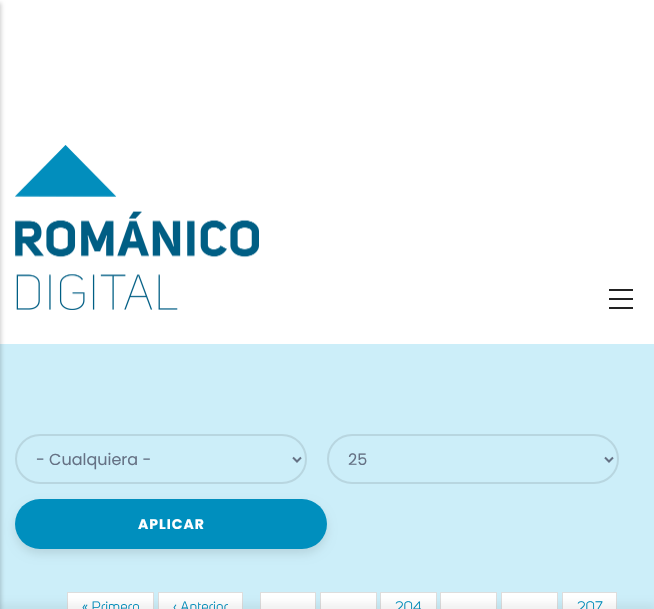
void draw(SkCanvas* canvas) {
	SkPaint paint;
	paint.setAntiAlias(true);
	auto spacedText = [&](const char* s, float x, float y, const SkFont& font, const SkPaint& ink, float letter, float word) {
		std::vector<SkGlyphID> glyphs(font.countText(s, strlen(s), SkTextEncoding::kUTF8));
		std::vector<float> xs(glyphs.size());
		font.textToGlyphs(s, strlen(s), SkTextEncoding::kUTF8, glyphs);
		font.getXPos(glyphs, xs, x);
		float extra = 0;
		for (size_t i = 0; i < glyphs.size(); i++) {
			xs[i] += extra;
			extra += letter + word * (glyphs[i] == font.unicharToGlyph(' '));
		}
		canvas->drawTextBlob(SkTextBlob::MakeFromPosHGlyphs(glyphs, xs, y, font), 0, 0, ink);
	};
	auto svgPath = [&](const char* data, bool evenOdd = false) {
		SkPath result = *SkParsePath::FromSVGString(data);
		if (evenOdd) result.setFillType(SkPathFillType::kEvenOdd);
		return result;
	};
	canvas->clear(0xffffffff);
	paint.setColor(0xffcceef9);
	canvas->drawRect(SkRect::MakeXYWH(0, 344, 654, 265), paint);
	paint.setColor(0x33000000);
	paint.setMaskFilter(SkMaskFilter::MakeBlur(kNormal_SkBlurStyle, 2));
	canvas->drawRect(SkRect::MakeXYWH(-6, 3, 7, 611), paint);
	paint.setMaskFilter(nullptr);
	paint.setColor(0xff222222);
	canvas->drawRect(SkRect::MakeXYWH(609, 289, 24, 2), paint);
	canvas->drawRect(SkRect::MakeXYWH(609, 298, 24, 2), paint);
	canvas->drawRect(SkRect::MakeXYWH(609, 307, 24, 2), paint);
	canvas->drawImageRect(SkImages::DeferredFromEncodedData(SkData::MakeFromFileName("img1.png")), SkRect::MakeXYWH(15, 145, 244, 165), SkSamplingOptions());
	paint.setStroke(true);
	paint.setStrokeWidth(2);
	paint.setColor(0xffb8d6e0);
	canvas->drawRoundRect(SkRect::MakeXYWH(16, 435, 290, 48), 24, 24, paint);
	paint.setColor(0xff657184);
	canvas->drawPath(svgPath("M293 457.5L297 461.5L301 457.5"), paint);
	SkFont f1(fontMgr->matchFamilyStyle("Poppins", SkFontStyle::Normal()), 16);
	f1.setSubpixel(true);
	paint.setStroke(false);
	canvas->drawString("- Cualquiera -", 36, 465, f1, paint);
	paint.setStroke(true);
	paint.setColor(0xffb8d6e0);
	canvas->drawRoundRect(SkRect::MakeXYWH(328, 435, 290, 48), 24, 24, paint);
	paint.setColor(0xff657184);
	canvas->drawPath(svgPath("M605 457.5L609 461.5L613 457.5"), paint);
	paint.setStroke(false);
	canvas->drawString("25", 348, 465, f1, paint);
	paint.setColor(0x1a000000);
	paint.setMaskFilter(SkMaskFilter::MakeBlur(kNormal_SkBlurStyle, 5));
	canvas->drawRoundRect(SkRect::MakeXYWH(15, 504, 312, 50), 25, 25, paint);
	paint.setMaskFilter(nullptr);
	paint.setColor(0xff008fbe);
	canvas->drawRoundRect(SkRect::MakeXYWH(15, 499, 312, 50), 25, 25, paint);
	SkFont f2(fontMgr->matchFamilyStyle("Poppins", SkFontStyle::Bold()), 14);
	f2.setSubpixel(true);
	paint.setColor(0xffffffff);
	spacedText("APLICAR", 138, 529, f2, paint, 1, 0);
	canvas->drawRect(SkRect::MakeXYWH(67.5, 592.5, 86, 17), paint);
	paint.setStroke(true);
	paint.setStrokeWidth(1);
	paint.setColor(0xffdddddd);
	canvas->drawRect(SkRect::MakeXYWH(67.5, 592.5, 86, 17), paint);
	SkFont f3(fontMgr->matchFamilyStyle("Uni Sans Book", SkFontStyle::Normal()), 15);
	f3.setSubpixel(true);
	paint.setStroke(false);
	paint.setColor(0xff008fbe);
	canvas->drawString("« Primero", 82, 612, f3, paint);
	paint.setColor(0xffffffff);
	canvas->drawRect(SkRect::MakeXYWH(158.5, 592.5, 84, 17), paint);
	paint.setStroke(true);
	paint.setColor(0xffdddddd);
	canvas->drawRect(SkRect::MakeXYWH(158.5, 592.5, 84, 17), paint);
	paint.setStroke(false);
	paint.setColor(0xff008fbe);
	canvas->drawString("‹ Anterior", 173, 612, f3, paint);
	paint.setColor(0xffffffff);
	canvas->drawRect(SkRect::MakeXYWH(260.5, 592.5, 55, 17), paint);
	paint.setStroke(true);
	paint.setColor(0xffdddddd);
	canvas->drawRect(SkRect::MakeXYWH(260.5, 592.5, 55, 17), paint);
	paint.setStroke(false);
	paint.setColor(0xffffffff);
	canvas->drawRect(SkRect::MakeXYWH(320.5, 592.5, 56, 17), paint);
	paint.setStroke(true);
	paint.setColor(0xffdddddd);
	canvas->drawRect(SkRect::MakeXYWH(320.5, 592.5, 56, 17), paint);
	paint.setStroke(false);
	paint.setColor(0xffffffff);
	canvas->drawRect(SkRect::MakeXYWH(380.5, 592.5, 56, 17), paint);
	paint.setStroke(true);
	paint.setColor(0xffdddddd);
	canvas->drawRect(SkRect::MakeXYWH(380.5, 592.5, 56, 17), paint);
	paint.setStroke(false);
	paint.setColor(0xff008fbe);
	canvas->drawString("204", 395, 612, f3, paint);
	paint.setColor(0xffffffff);
	canvas->drawRect(SkRect::MakeXYWH(440.5, 592.5, 56, 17), paint);
	paint.setStroke(true);
	paint.setColor(0xffdddddd);
	canvas->drawRect(SkRect::MakeXYWH(440.5, 592.5, 56, 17), paint);
	paint.setStroke(false);
	paint.setColor(0xffffffff);
	canvas->drawRect(SkRect::MakeXYWH(501.5, 592.5, 56, 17), paint);
	paint.setStroke(true);
	paint.setColor(0xffdddddd);
	canvas->drawRect(SkRect::MakeXYWH(501.5, 592.5, 56, 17), paint);
	paint.setStroke(false);
	paint.setColor(0xffffffff);
	canvas->drawRect(SkRect::MakeXYWH(562.5, 592.5, 54, 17), paint);
	paint.setStroke(true);
	paint.setColor(0xffdddddd);
	canvas->drawRect(SkRect::MakeXYWH(562.5, 592.5, 54, 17), paint);
	paint.setStroke(false);
	paint.setColor(0xff008fbe);
	canvas->drawString("207", 577, 612, f3, paint);
	paint.setColor(0x1a000000);
	paint.setMaskFilter(SkMaskFilter::MakeBlur(kNormal_SkBlurStyle, 5));
	canvas->drawRect(SkRect::MakeXYWH(-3, 606, 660, 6), paint);
	paint.setMaskFilter(nullptr);
}
